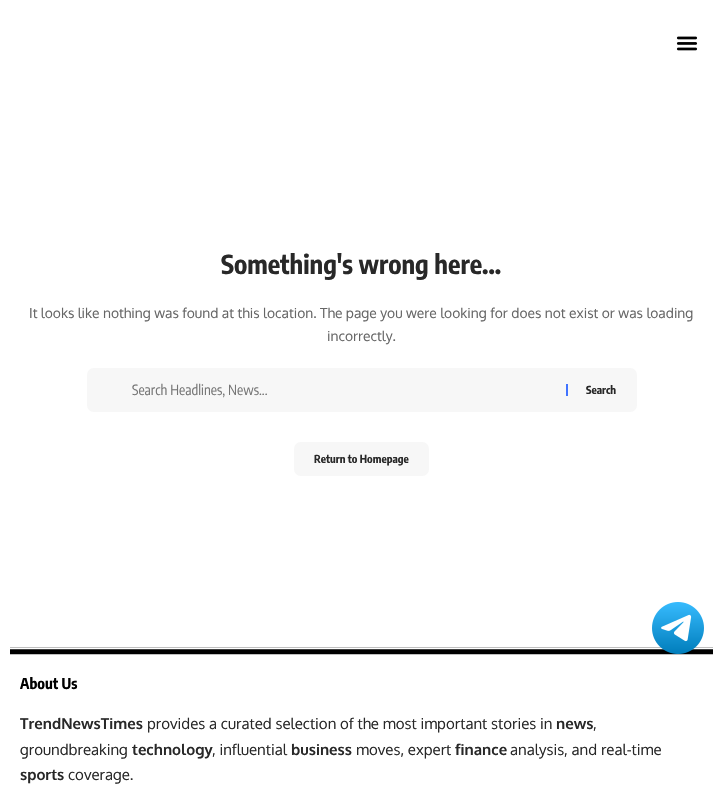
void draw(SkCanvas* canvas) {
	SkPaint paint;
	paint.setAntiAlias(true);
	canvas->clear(0xffffffff);
	canvas->drawImageRect(SkImages::DeferredFromEncodedData(SkData::MakeFromFileName("img1.png")), SkRect::MakeXYWH(676, 36, 22, 15), SkSamplingOptions());
	SkFont f1(fontMgr->matchFamilyStyle("Encode Sans Condensed", SkFontStyle::Bold()), 26);
	f1.setSubpixel(true);
	paint.setColor(0xff282828);
	canvas->drawString("Something's wrong here...", 221, 274, f1, paint);
	SkFont f2(fontMgr->matchFamilyStyle("Oxygen", SkFontStyle::Normal()), 13.8);
	f2.setSubpixel(true);
	paint.setColor(0xff666666);
	canvas->drawString("It looks like nothing was found at this location. The page you were looking for does not exist or was loading", 29, 318, f2, paint);
	canvas->drawString("incorrectly.", 327, 341, f2, paint);
	paint.setColor(0xfff7f7f7);
	canvas->drawRoundRect(SkRect::MakeXYWH(87, 368, 550, 44), 7, 7, paint);
	SkFont f3(fontMgr->matchFamilyStyle("Encode Sans Condensed", SkFontStyle::Normal()), 14);
	f3.setSubpixel(true);
	paint.setColor(0xff757575);
	canvas->drawString("Search Headlines, News...", 132, 395, f3, paint);
	paint.setColor(0xff4173ff);
	canvas->drawRect(SkRect::MakeXYWH(566, 384, 2, 12), paint);
	SkFont f4(fontMgr->matchFamilyStyle("Encode Sans Condensed", SkFontStyle::Bold()), 11);
	f4.setSubpixel(true);
	paint.setColor(0xff282828);
	canvas->drawString("Search", 586, 394, f4, paint);
	paint.setColor(0xfff7f7f7);
	canvas->drawRoundRect(SkRect::MakeXYWH(294, 442, 135, 34), 7, 7, paint);
	paint.setColor(0xff282828);
	canvas->drawString("Return to Homepage", 314, 463, f4, paint);
	canvas->drawImageRect(SkImages::DeferredFromEncodedData(SkData::MakeFromFileName("img3.png")), SkRect::MakeXYWH(10, 647, 703, 8), SkSamplingOptions());
	canvas->drawImageRect(SkImages::DeferredFromEncodedData(SkData::MakeFromFileName("img2.png")), SkRect::MakeXYWH(652, 602, 52, 52), SkSamplingOptions());
	SkFont f5(fontMgr->matchFamilyStyle("Encode Sans Condensed", SkFontStyle::Bold()), 15);
	f5.setSubpixel(true);
	paint.setColor(0xff000000);
	canvas->drawString("About Us", 20, 689, f5, paint);
	SkFont f6(fontMgr->matchFamilyStyle("Oxygen", SkFontStyle::Bold()), 15);
	f6.setSubpixel(true);
	paint.setColor(0xff282828);
	canvas->drawString("TrendNewsTimes", 20, 729, f6, paint);
	SkFont f7(fontMgr->matchFamilyStyle("Oxygen", SkFontStyle::Normal()), 15);
	f7.setSubpixel(true);
	canvas->drawString("provides a curated selection of the most important stories in", 147, 729, f7, paint);
	canvas->drawString("news", 556, 729, f6, paint);
	canvas->drawString(",", 593, 729, f7, paint);
	canvas->drawString("groundbreaking", 20, 755, f7, paint);
	canvas->drawString("technology", 132, 755, f6, paint);
	canvas->drawString(", influential", 212, 755, f7, paint);
	canvas->drawString("business", 291, 755, f6, paint);
	canvas->drawString("moves, expert", 356, 755, f7, paint);
	canvas->drawString("finance", 455, 755, f6, paint);
	canvas->drawString("analysis, and real-time", 510, 755, f7, paint);
	canvas->drawString("sports", 20, 780, f6, paint);
	canvas->drawString("coverage.", 68, 780, f7, paint);
}
